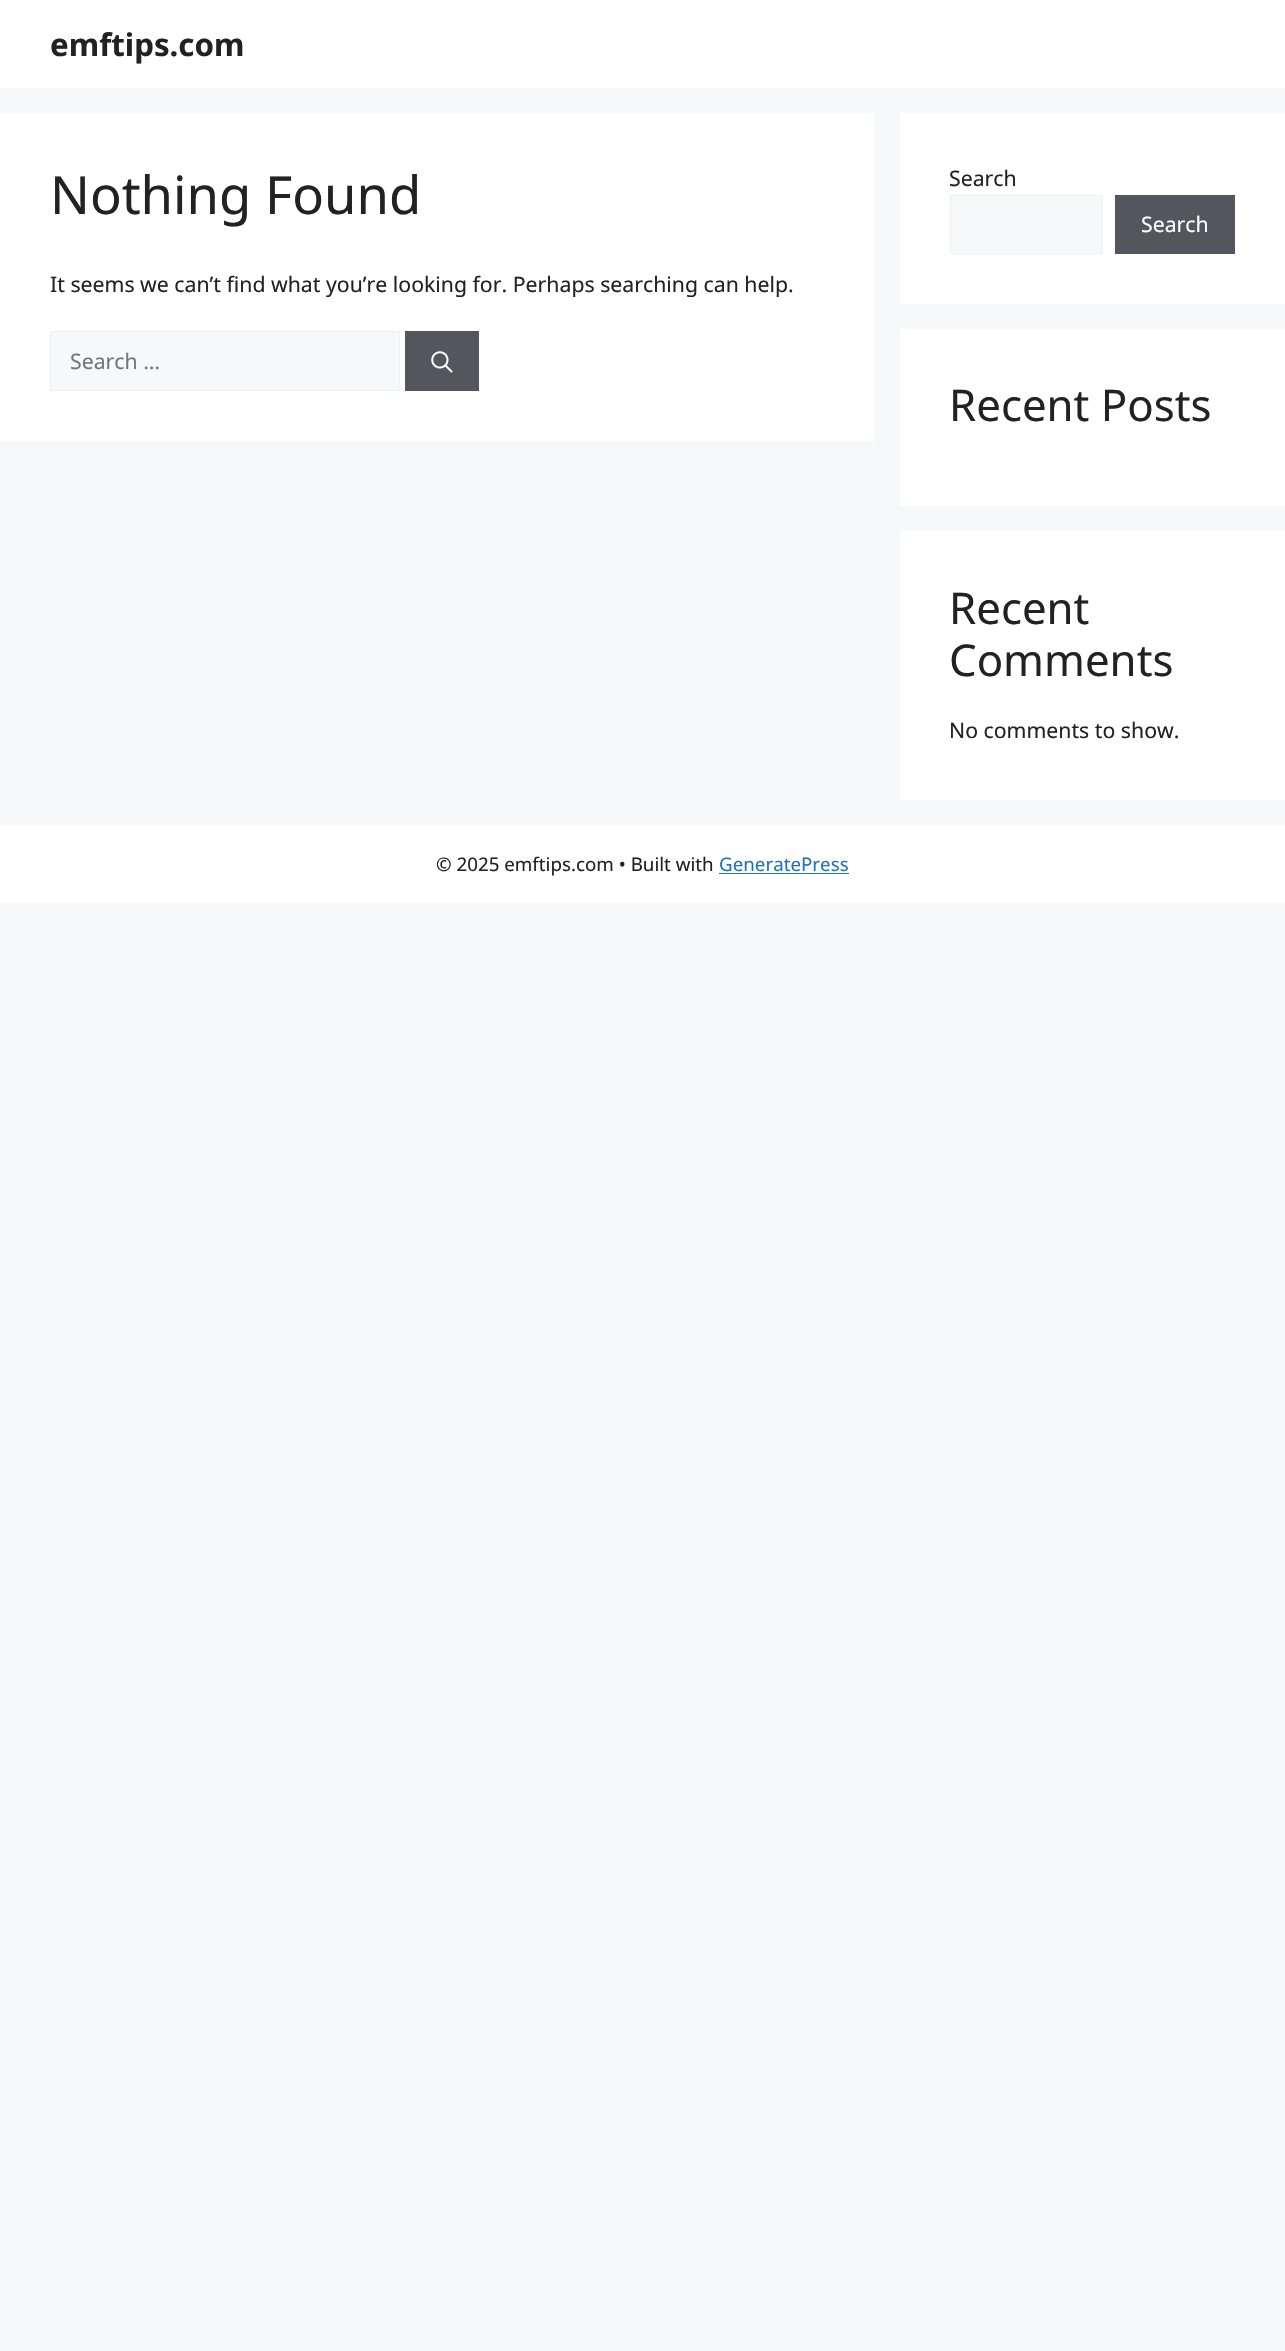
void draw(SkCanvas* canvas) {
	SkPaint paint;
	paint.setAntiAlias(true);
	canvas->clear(0xfff7f8f9);
	paint.setColor(0xffffffff);
	canvas->drawRect(SkRect::MakeXYWH(0, 0, 1285, 88), paint);
	SkFont f1(fontMgr->matchFamilyStyle("Noto Sans", SkFontStyle::Bold()), 31.25);
	f1.setSubpixel(true);
	paint.setColor(0xff222222);
	canvas->drawString("emftips.com", 50, 56, f1, paint);
	paint.setColor(0xffffffff);
	canvas->drawRect(SkRect::MakeXYWH(0, 113, 875, 328), paint);
	SkFont f2(fontMgr->matchFamilyStyle("Noto Sans", SkFontStyle::Normal()), 52.5);
	f2.setSubpixel(true);
	paint.setColor(0xff222222);
	canvas->drawString("Nothing Found", 50, 214, f2, paint);
	SkFont f3(fontMgr->matchFamilyStyle("Noto Sans", SkFontStyle::Normal()), 21.25);
	f3.setSubpixel(true);
	canvas->drawString("It seems we can’t find what you’re looking for. Perhaps searching can help.", 50, 292, f3, paint);
	paint.setColor(0xfff7f8f9);
	canvas->drawRect(SkRect::MakeXYWH(50.5, 331.5, 349, 59), paint);
	paint.setStroke(true);
	paint.setStrokeWidth(1);
	paint.setColor(0xfff0f0f0);
	canvas->drawRect(SkRect::MakeXYWH(50.5, 331.5, 349, 59), paint);
	paint.setStroke(false);
	paint.setColor(0xff757575);
	canvas->drawString("Search …", 70, 369, f3, paint);
	paint.setColor(0xff55555e);
	canvas->drawRect(SkRect::MakeXYWH(405, 331, 74, 60), paint);
	canvas->drawImageRect(SkImages::DeferredFromEncodedData(SkData::MakeFromFileName("img1.png")), SkRect::MakeXYWH(431, 351, 22, 22), SkSamplingOptions());
	paint.setColor(0xffffffff);
	canvas->drawRect(SkRect::MakeXYWH(900, 113, 385, 191), paint);
	paint.setColor(0xff222222);
	canvas->drawString("Search", 949, 186, f3, paint);
	paint.setColor(0xfff7f8f9);
	canvas->drawRect(SkRect::MakeXYWH(950.5, 195.5, 152, 58), paint);
	paint.setStroke(true);
	paint.setColor(0xfff0f0f0);
	canvas->drawRect(SkRect::MakeXYWH(950.5, 195.5, 152, 58), paint);
	paint.setStroke(false);
	paint.setColor(0xff55555e);
	canvas->drawRect(SkRect::MakeXYWH(1115, 195, 120, 59), paint);
	paint.setColor(0xffffffff);
	canvas->drawString("Search", 1141, 232, f3, paint);
	canvas->drawRect(SkRect::MakeXYWH(900, 329, 385, 177), paint);
	SkFont f4(fontMgr->matchFamilyStyle("Noto Sans", SkFontStyle::Normal()), 43.75);
	f4.setSubpixel(true);
	paint.setColor(0xff222222);
	canvas->drawString("Recent Posts", 949, 421, f4, paint);
	paint.setColor(0xffffffff);
	canvas->drawRect(SkRect::MakeXYWH(900, 531, 385, 269), paint);
	paint.setColor(0xff222222);
	canvas->drawString("Recent", 949, 624, f4, paint);
	canvas->drawString("Comments", 949, 676, f4, paint);
	canvas->drawString("No comments to show.", 949, 738, f3, paint);
	paint.setColor(0xffffffff);
	canvas->drawRect(SkRect::MakeXYWH(0, 825, 1285, 78), paint);
	SkFont f5(fontMgr->matchFamilyStyle("Noto Sans", SkFontStyle::Normal()), 18.75);
	f5.setSubpixel(true);
	paint.setColor(0xff222222);
	canvas->drawString("© 2025 emftips.com • Built with", 436, 871, f5, paint);
	paint.setColor(0xff1e73be);
	canvas->drawString("GeneratePress", 719, 871, f5, paint);
	canvas->drawRect(SkRect::MakeXYWH(719, 873, 130, 1), paint);
}
